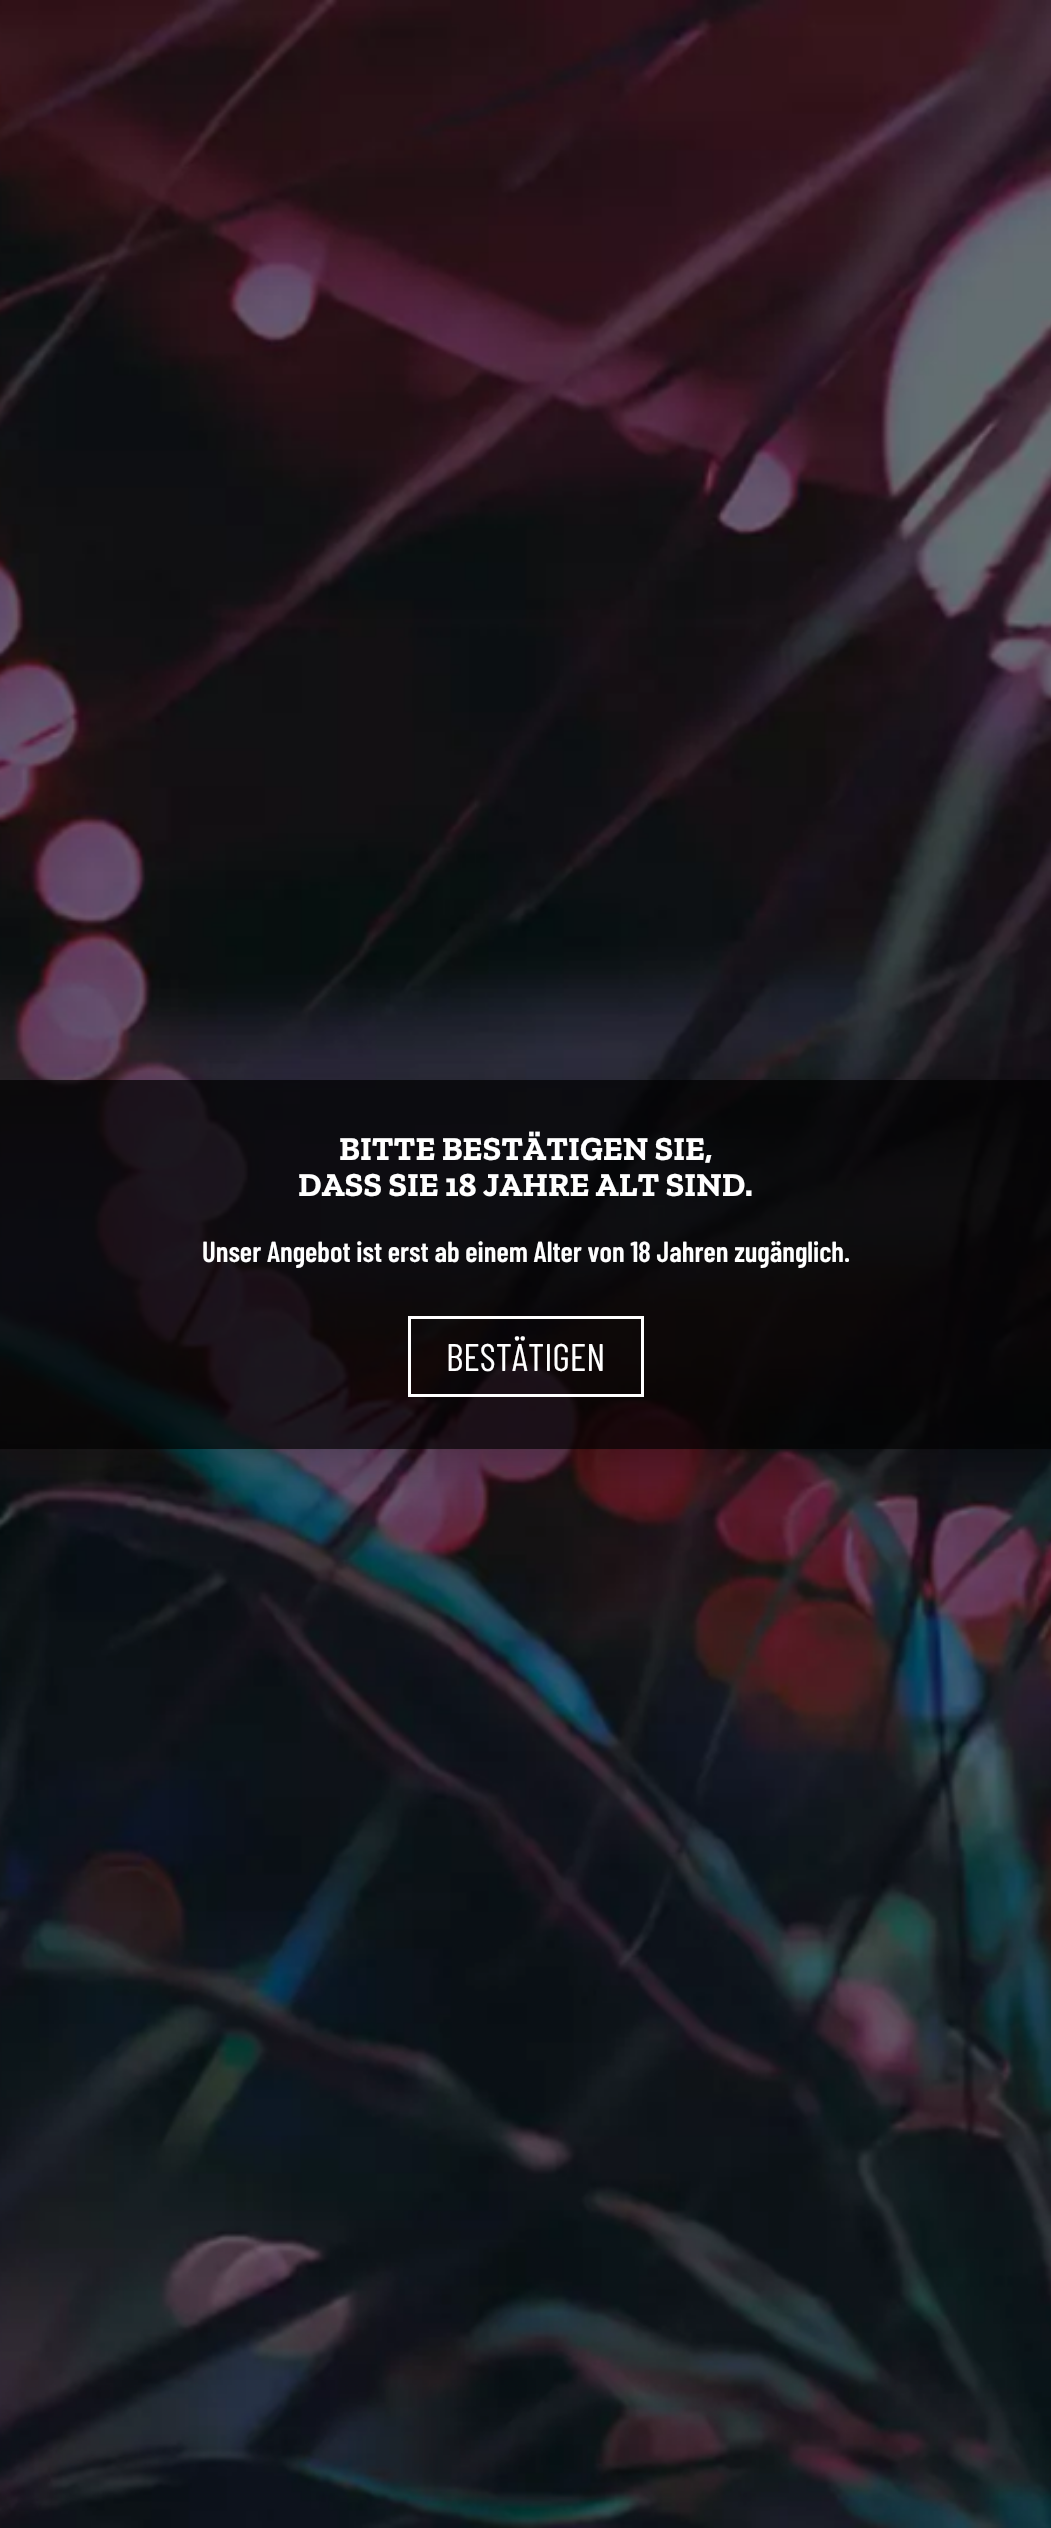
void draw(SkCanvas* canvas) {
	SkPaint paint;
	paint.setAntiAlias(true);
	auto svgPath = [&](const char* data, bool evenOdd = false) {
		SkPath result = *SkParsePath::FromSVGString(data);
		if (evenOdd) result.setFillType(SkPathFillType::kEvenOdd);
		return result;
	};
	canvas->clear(0xffffffff);
	canvas->drawImageRect(SkImages::DeferredFromEncodedData(SkData::MakeFromFileName("img1.png")), SkRect::MakeXYWH(0, 0, 1051, 2528), SkSamplingOptions());
	canvas->save();
	canvas->clipPath(svgPath("M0 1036H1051V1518H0ZM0 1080H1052V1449H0Z", true), true);
	paint.setColor(0x33000000);
	paint.setMaskFilter(SkMaskFilter::MakeBlur(kNormal_SkBlurStyle, 17));
	canvas->drawRect(SkRect::MakeXYWH(-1, 1088, 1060, 378), paint);
	paint.setMaskFilter(nullptr);
	canvas->restore();
	paint.setColor(0xba000000);
	canvas->drawRect(SkRect::MakeXYWH(0, 1080, 1051, 369), paint);
	SkFont f1(fontMgr->matchFamilyStyle("Zilla Slab", SkFontStyle::Bold()), 33.6);
	f1.setSubpixel(true);
	paint.setColor(0xffffffff);
	canvas->drawString("BITTE BESTÄTIGEN SIE,", 339, 1160, f1, paint);
	canvas->drawString("DASS SIE 18 JAHRE ALT SIND.", 298, 1196, f1, paint);
	SkFont f2(fontMgr->matchFamilyStyle("Barlow Condensed", SkFontStyle(600, SkFontStyle::kNormal_Width, SkFontStyle::kUpright_Slant)), 28.8);
	f2.setSubpixel(true);
	canvas->drawString("Unser Angebot ist erst ab einem Alter von 18 Jahren zugänglich.", 202, 1262, f2, paint);
	paint.setStroke(true);
	paint.setStrokeWidth(3);
	canvas->drawRect(SkRect::MakeXYWH(409.5, 1317.5, 233, 78), paint);
	SkFont f3(fontMgr->matchFamilyStyle("Barlow Condensed", SkFontStyle::Normal()), 38.5);
	f3.setSubpixel(true);
	paint.setStroke(false);
	canvas->drawString("BESTÄTIGEN", 446, 1371, f3, paint);
}
